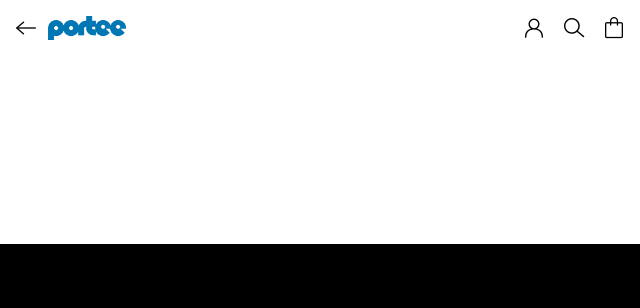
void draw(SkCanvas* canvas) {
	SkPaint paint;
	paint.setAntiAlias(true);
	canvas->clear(0xffffffff);
	canvas->drawImageRect(SkImages::DeferredFromEncodedData(SkData::MakeFromFileName("img1.png")), SkRect::MakeXYWH(16, 21, 20, 14), SkSamplingOptions());
	canvas->drawImageRect(SkImages::DeferredFromEncodedData(SkData::MakeFromFileName("img2.png")), SkRect::MakeXYWH(48, 16, 78, 24), SkSamplingOptions());
	canvas->drawImageRect(SkImages::DeferredFromEncodedData(SkData::MakeFromFileName("img3.png")), SkRect::MakeXYWH(525, 18, 18, 20), SkSamplingOptions());
	canvas->drawImageRect(SkImages::DeferredFromEncodedData(SkData::MakeFromFileName("img4.png")), SkRect::MakeXYWH(564, 18, 21, 20), SkSamplingOptions());
	canvas->drawImageRect(SkImages::DeferredFromEncodedData(SkData::MakeFromFileName("img5.png")), SkRect::MakeXYWH(605, 17, 18, 22), SkSamplingOptions());
	paint.setColor(0xff000000);
	canvas->drawRect(SkRect::MakeXYWH(0, 244, 640, 64), paint);
}
